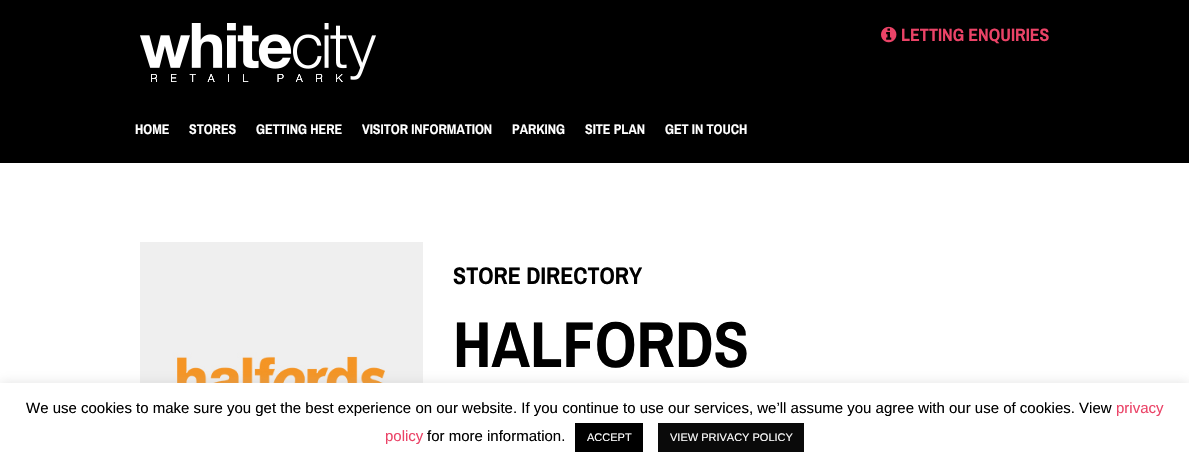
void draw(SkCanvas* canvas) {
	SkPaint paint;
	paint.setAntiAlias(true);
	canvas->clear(0xffffffff);
	paint.setColor(0xff000000);
	canvas->drawRect(SkRect::MakeXYWH(0, 0, 1189, 163), paint);
	canvas->drawImageRect(SkImages::DeferredFromEncodedData(SkData::MakeFromFileName("img1.png")), SkRect::MakeXYWH(140, 23, 236, 59), SkSamplingOptions());
	canvas->drawImageRect(SkImages::DeferredFromEncodedData(SkData::MakeFromFileName("img2.png")), SkRect::MakeXYWH(881, 26, 16, 17), SkSamplingOptions());
	SkFont f1(fontMgr->matchFamilyStyle("Archivo Narrow", SkFontStyle::Bold()), 18);
	f1.setSubpixel(true);
	paint.setColor(0xffeb4367);
	canvas->drawString("LETTING ENQUIRIES", 901, 41, f1, paint);
	SkFont f2(fontMgr->matchFamilyStyle("Archivo Narrow", SkFontStyle::Bold()), 14);
	f2.setSubpixel(true);
	paint.setColor(0xffffffff);
	canvas->drawString("HOME", 135, 134, f2, paint);
	canvas->drawString("STORES", 189, 134, f2, paint);
	canvas->drawString("GETTING HERE", 256, 134, f2, paint);
	canvas->drawString("VISITOR INFORMATION", 362, 134, f2, paint);
	canvas->drawString("PARKING", 512, 134, f2, paint);
	canvas->drawString("SITE PLAN", 585, 134, f2, paint);
	canvas->drawString("GET IN TOUCH", 665, 134, f2, paint);
	canvas->drawImageRect(SkImages::DeferredFromEncodedData(SkData::MakeFromFileName("img3.png")), SkRect::MakeXYWH(140, 242, 283, 141), SkSamplingOptions());
	SkFont f3(fontMgr->matchFamilyStyle("Archivo Narrow", SkFontStyle::Bold()), 24);
	f3.setSubpixel(true);
	paint.setColor(0xff000000);
	canvas->drawString("STORE DIRECTORY", 453, 284, f3, paint);
	SkFont f4(fontMgr->matchFamilyStyle("Archivo Narrow", SkFontStyle::Bold()), 65);
	f4.setSubpixel(true);
	canvas->drawString("HALFORDS", 453, 367, f4, paint);
	paint.setColor(0x4dacabab);
	paint.setMaskFilter(SkMaskFilter::MakeBlur(kNormal_SkBlurStyle, 5));
	canvas->drawRect(SkRect::MakeXYWH(0, 382, 1189, 86), paint);
	paint.setMaskFilter(nullptr);
	paint.setColor(0xffffffff);
	canvas->drawRect(SkRect::MakeXYWH(0, 383, 1189, 86), paint);
	SkFont f5(fontMgr->matchFamilyStyle("Liberation Sans", SkFontStyle::Normal()), 15);
	f5.setSubpixel(true);
	paint.setColor(0xff000000);
	canvas->drawString("We use cookies to make sure you get the best experience on our website. If you continue to use our services, we’ll assume you agree with our use of cookies. View", 26, 413, f5, paint);
	paint.setColor(0xffeb4367);
	canvas->drawString("privacy", 1116, 413, f5, paint);
	canvas->drawString("policy", 385, 441, f5, paint);
	paint.setColor(0xff000000);
	canvas->drawString("for more information.", 427, 441, f5, paint);
	canvas->drawRect(SkRect::MakeXYWH(575, 423, 68, 29), paint);
	SkFont f6(fontMgr->matchFamilyStyle("Liberation Sans", SkFontStyle::Normal()), 11);
	f6.setSubpixel(true);
	paint.setColor(0xffffffff);
	canvas->drawString("ACCEPT", 587, 441, f6, paint);
	paint.setColor(0xff0a0a0a);
	canvas->drawRect(SkRect::MakeXYWH(658, 423, 146, 29), paint);
	paint.setColor(0xffffffff);
	canvas->drawString("VIEW PRIVACY POLICY", 670, 441, f6, paint);
}
